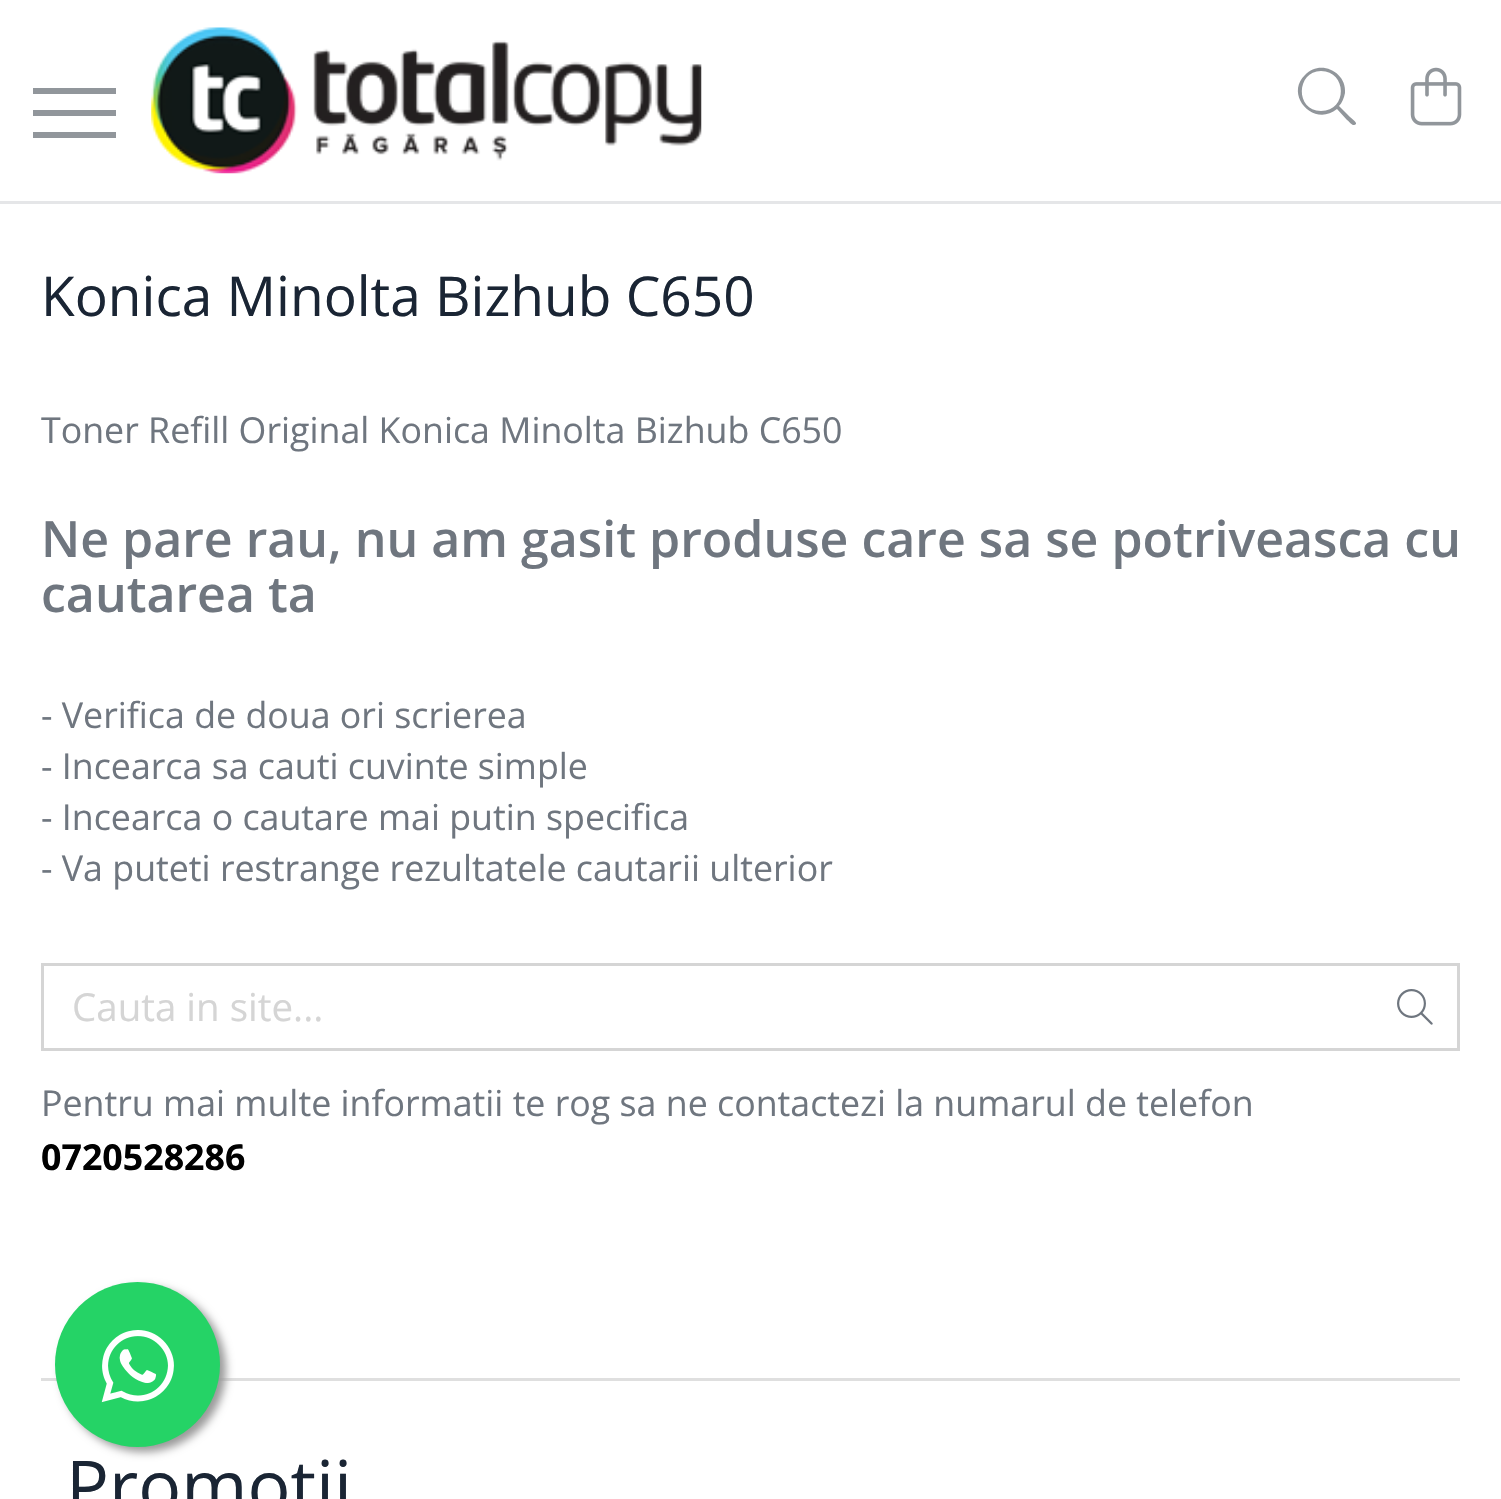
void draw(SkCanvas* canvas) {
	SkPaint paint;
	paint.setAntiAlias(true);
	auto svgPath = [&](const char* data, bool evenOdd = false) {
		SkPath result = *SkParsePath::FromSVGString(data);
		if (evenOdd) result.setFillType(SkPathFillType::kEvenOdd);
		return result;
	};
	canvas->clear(0xffffffff);
	paint.setColor(0xffe5e6e8);
	canvas->drawRect(SkRect::MakeXYWH(0, 201, 1501, 3), paint);
	paint.setColor(0xff91969b);
	canvas->drawRect(SkRect::MakeXYWH(33, 110, 83, 6), paint);
	canvas->drawRect(SkRect::MakeXYWH(33, 88, 83, 6), paint);
	canvas->drawRect(SkRect::MakeXYWH(33, 132, 83, 6), paint);
	canvas->drawImageRect(SkImages::DeferredFromEncodedData(SkData::MakeFromFileName("img1.png")), SkRect::MakeXYWH(151, 27, 551, 147), SkSamplingOptions());
	canvas->drawPath(svgPath("M1339 106C1342 103 1344 98 1345 93C1347 72 1320 59 1305 75C1284 95 1314 128 1337 109L1347 120C1348 120 1353 128 1356 124C1357 122 1351 118 1350 117ZM1321 111C1295 111 1296 71 1321 71C1347 71 1348 111 1321 111Z"), paint);
	canvas->drawImageRect(SkImages::DeferredFromEncodedData(SkData::MakeFromFileName("img2.png")), SkRect::MakeXYWH(1410, 67, 52, 59), SkSamplingOptions());
	SkFont f1(fontMgr->matchFamilyStyle("Open Sans", SkFontStyle::Normal()), 55);
	f1.setSubpixel(true);
	paint.setColor(0xff1a2534);
	canvas->drawString("Konica Minolta Bizhub C650", 41, 316, f1, paint);
	SkFont f2(fontMgr->matchFamilyStyle("Open Sans", SkFontStyle::Normal()), 35.75);
	f2.setSubpixel(true);
	paint.setColor(0xff6f767f);
	canvas->drawString("Toner Refill Original Konica Minolta Bizhub C650", 41, 443, f2, paint);
	paint.setColor(0xffdfdfdf);
	canvas->drawRect(SkRect::MakeXYWH(41, 1378, 1419, 3), paint);
	SkFont f3(fontMgr->matchFamilyStyle("Open Sans", SkFontStyle(600, SkFontStyle::kNormal_Width, SkFontStyle::kUpright_Slant)), 50.05);
	f3.setSubpixel(true);
	paint.setColor(0xff6f767f);
	canvas->drawString("Ne pare rau, nu am gasit produse care sa se potriveasca cu", 41, 557, f3, paint);
	canvas->drawString("cautarea ta", 41, 612, f3, paint);
	canvas->drawString("- Verifica de doua ori scrierea", 41, 728, f2, paint);
	canvas->drawString("- Incearca sa cauti cuvinte simple", 41, 779, f2, paint);
	canvas->drawString("- Incearca o cautare mai putin specifica", 41, 830, f2, paint);
	canvas->drawString("- Va puteti restrange rezultatele cautarii ulterior", 41, 881, f2, paint);
	paint.setStroke(true);
	paint.setStrokeWidth(3);
	paint.setColor(0xffd5d5d5);
	canvas->drawRect(SkRect::MakeXYWH(42.5, 964.5, 1416, 85), paint);
	SkFont f4(fontMgr->matchFamilyStyle("Open Sans", SkFontStyle::Normal()), 38.5);
	f4.setSubpixel(true);
	paint.setStroke(false);
	canvas->drawString("Cauta in site...", 72, 1021, f4, paint);
	canvas->drawImageRect(SkImages::DeferredFromEncodedData(SkData::MakeFromFileName("img3.png")), SkRect::MakeXYWH(1397, 989, 36, 36), SkSamplingOptions());
	paint.setColor(0xff6f767f);
	canvas->drawString("Pentru mai multe informatii te rog sa ne contactezi la numarul de telefon", 41, 1116, f2, paint);
	SkFont f5(fontMgr->matchFamilyStyle("Open Sans", SkFontStyle::Bold()), 35.75);
	f5.setSubpixel(true);
	paint.setColor(0xff000000);
	canvas->drawString("0720528286", 41, 1170, f5, paint);
	SkFont f6(fontMgr->matchFamilyStyle("Open Sans", SkFontStyle::Normal()), 71.5);
	f6.setSubpixel(true);
	paint.setColor(0xff1a2534);
	canvas->drawString("Promotii", 66, 1512, f6, paint);
	paint.setColor(0xff999999);
	paint.setMaskFilter(SkMaskFilter::MakeBlur(kNormal_SkBlurStyle, 4));
	canvas->drawRoundRect(SkRect::MakeXYWH(61, 1287, 165, 165), 82.5, 82.5, paint);
	paint.setMaskFilter(nullptr);
	paint.setColor(0xff25d366);
	canvas->drawCircle(137.5, 1364.5, 82.5, paint);
	canvas->drawImageRect(SkImages::DeferredFromEncodedData(SkData::MakeFromFileName("img4.png")), SkRect::MakeXYWH(101, 1330, 73, 73), SkSamplingOptions());
}
